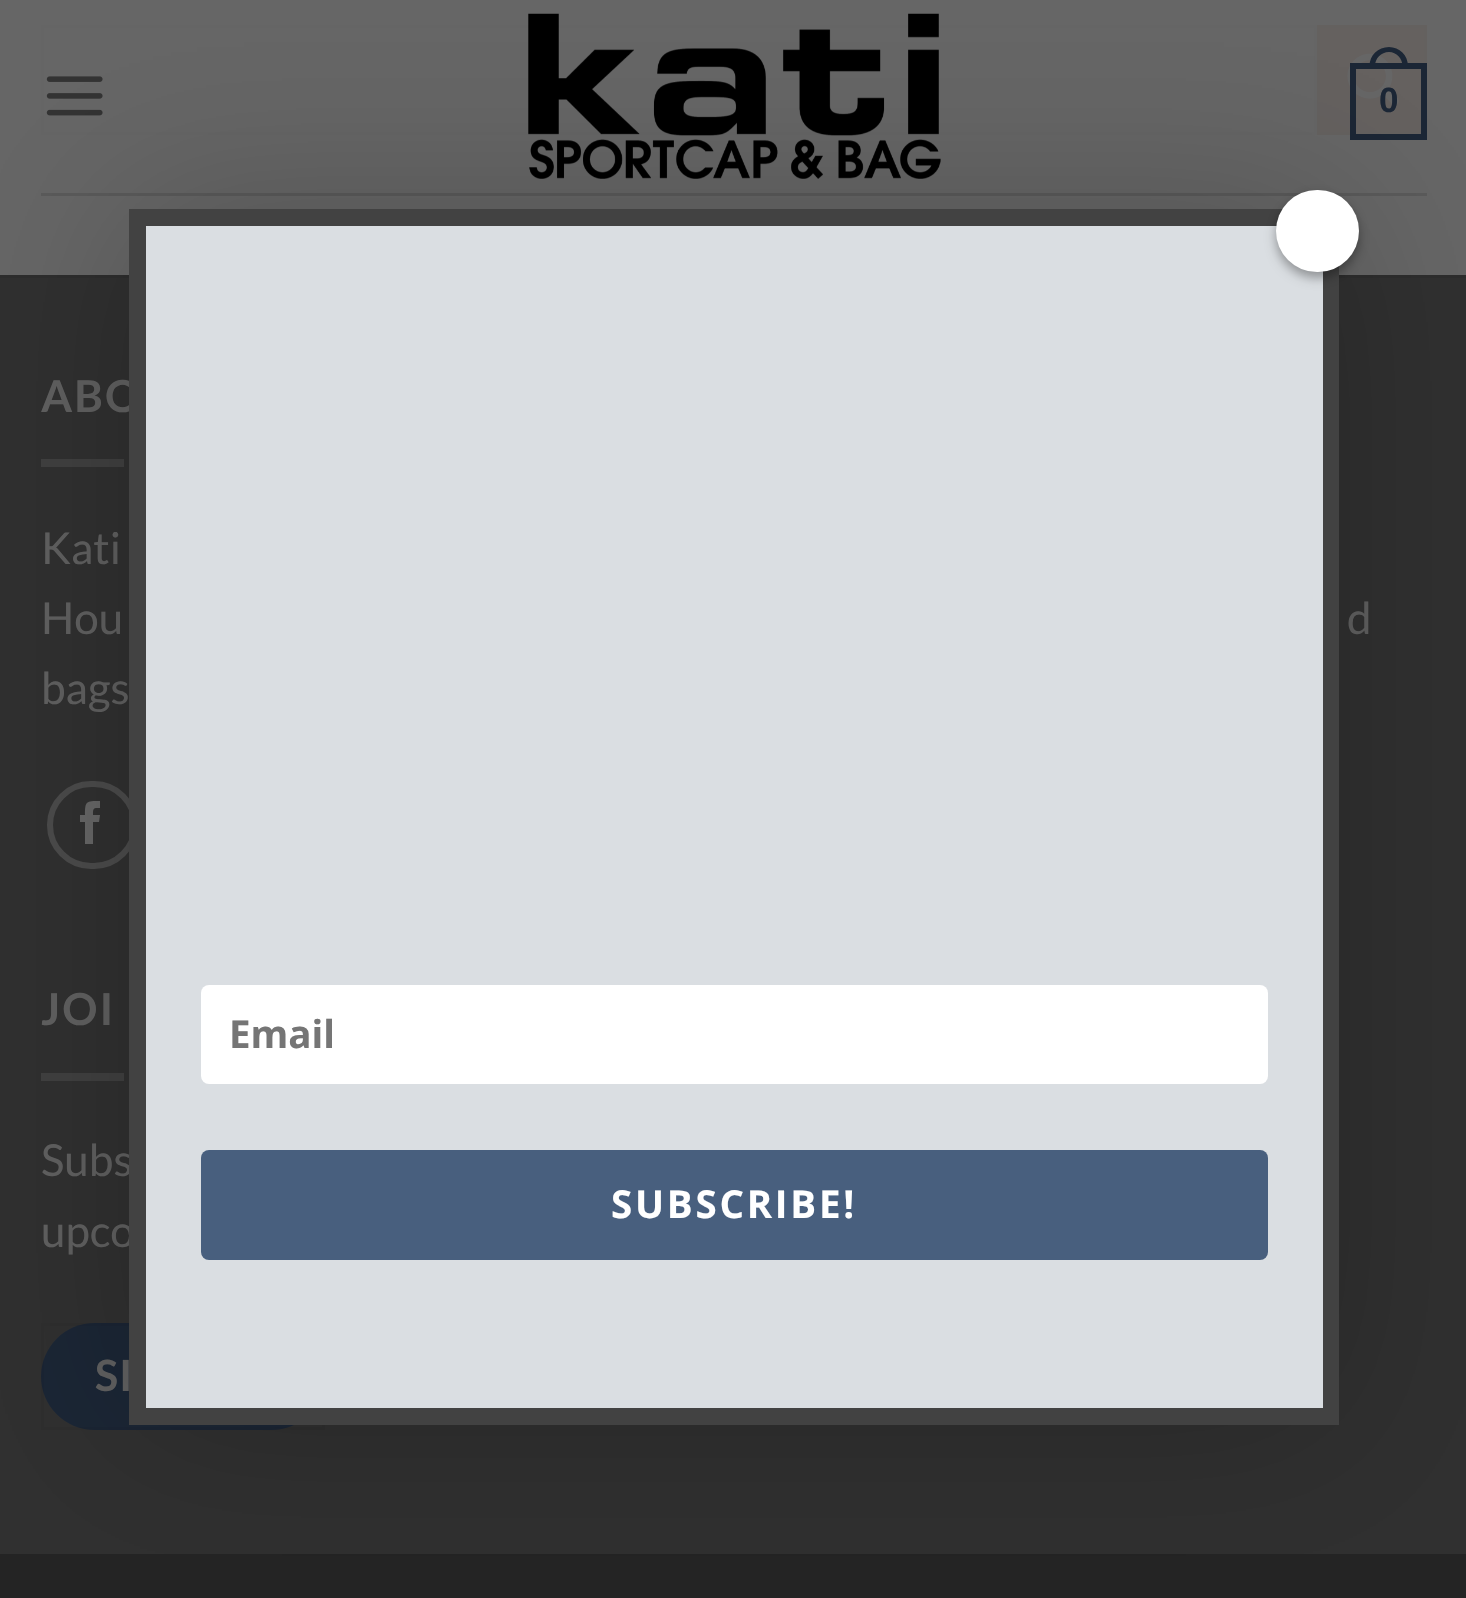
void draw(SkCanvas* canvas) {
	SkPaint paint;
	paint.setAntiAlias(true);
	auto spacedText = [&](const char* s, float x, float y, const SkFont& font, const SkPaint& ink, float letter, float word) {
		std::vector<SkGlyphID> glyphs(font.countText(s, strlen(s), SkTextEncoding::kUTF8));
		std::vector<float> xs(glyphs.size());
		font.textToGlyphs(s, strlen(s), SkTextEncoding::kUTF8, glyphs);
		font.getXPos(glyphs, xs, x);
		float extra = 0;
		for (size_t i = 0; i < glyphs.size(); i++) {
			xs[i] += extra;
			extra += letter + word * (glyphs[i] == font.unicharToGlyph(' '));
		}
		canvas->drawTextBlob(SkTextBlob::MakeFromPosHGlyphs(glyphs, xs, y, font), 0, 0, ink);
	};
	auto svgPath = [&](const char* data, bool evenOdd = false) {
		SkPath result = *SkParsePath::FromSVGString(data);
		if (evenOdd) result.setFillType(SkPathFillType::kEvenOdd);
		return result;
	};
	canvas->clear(0xff666666);
	paint.setStroke(true);
	paint.setStrokeWidth(3);
	paint.setColor(0xff585858);
	canvas->drawRect(SkRect::MakeXYWH(42.5, 26.5, 1273, 107), paint);
	paint.setStroke(false);
	paint.setColor(0xff542c1e);
	canvas->drawRect(SkRect::MakeXYWH(1318.5, 26.5, 107, 107), paint);
	paint.setStroke(true);
	paint.setColor(0xff502a1c);
	canvas->drawRect(SkRect::MakeXYWH(1318.5, 26.5, 107, 107), paint);
	canvas->drawImageRect(SkImages::DeferredFromEncodedData(SkData::MakeFromFileName("img1.png")), SkRect::MakeXYWH(1347, 53, 52, 52), SkSamplingOptions());
	paint.setStroke(false);
	paint.setColor(0xe6666666);
	canvas->drawRect(SkRect::MakeXYWH(41, 25, 1386, 110), paint);
	canvas->drawImageRect(SkImages::DeferredFromEncodedData(SkData::MakeFromFileName("img2.png")), SkRect::MakeXYWH(46, 76, 57, 40), SkSamplingOptions());
	canvas->drawImageRect(SkImages::DeferredFromEncodedData(SkData::MakeFromFileName("img3.png")), SkRect::MakeXYWH(528, 13, 413, 166), SkSamplingOptions());
	paint.setStroke(true);
	paint.setStrokeWidth(6);
	paint.setColor(0xff1b2635);
	canvas->drawRect(SkRect::MakeXYWH(1353, 66, 71, 71), paint);
	paint.setStroke(false);
	canvas->drawPath(svgPath("M1389 47C1399.5 47 1408 55.5 1408 66V69H1369.5V66C1369.5 55.5 1378 47 1389 47ZM1389 52C1396.5 52 1402.5 58.5 1402.5 66V69H1375V66C1375 58.5 1381 52 1389 52Z", true), paint);
	SkFont f1(fontMgr->matchFamilyStyle("Liberation Sans", SkFontStyle::Bold()), 35);
	f1.setSubpixel(true);
	canvas->drawString("0", 1379, 112, f1, paint);
	paint.setColor(0xff5a5a5a);
	canvas->drawRect(SkRect::MakeXYWH(41, 193, 1386, 3), paint);
	paint.setColor(0xff303030);
	canvas->drawRect(SkRect::MakeXYWH(0, 278, 1466, 1276), paint);
	paint.setColor(0xff2d2d2d);
	canvas->drawRect(SkRect::MakeXYWH(0, 275, 1466, 3), paint);
	SkFont f2(fontMgr->matchFamilyStyle("Lato", SkFontStyle::Bold()), 44);
	f2.setSubpixel(true);
	paint.setColor(0xff606060);
	spacedText("ABO", 41, 412, f2, paint, 2, 0);
	paint.setColor(0xff404040);
	canvas->drawRect(SkRect::MakeXYWH(41, 459, 83, 8), paint);
	SkFont f3(fontMgr->matchFamilyStyle("Lato", SkFontStyle::Normal()), 44);
	f3.setSubpixel(true);
	paint.setColor(0xff606060);
	canvas->drawString("Kati", 41, 564, f3, paint);
	canvas->drawString("Hou", 41, 634, f3, paint);
	canvas->drawString("d", 1347, 634, f3, paint);
	canvas->drawString("bags", 41, 704, f3, paint);
	paint.setStroke(true);
	paint.setColor(0xff4b4b4b);
	canvas->drawRoundRect(SkRect::MakeXYWH(50, 784, 85, 82), 41, 41, paint);
	paint.setStroke(false);
	paint.setColor(0xff666666);
	canvas->drawPath(svgPath("M93 844H85V822H80V815H85C85 801 86 801 100 801V808C93 808 93 808 93 815H100L99 822H93Z"), paint);
	paint.setColor(0xff606060);
	spacedText("JOI", 41, 1025, f2, paint, 2, 0);
	paint.setColor(0xff404040);
	canvas->drawRect(SkRect::MakeXYWH(41, 1073, 83, 8), paint);
	paint.setColor(0xff606060);
	canvas->drawString("Subs", 41, 1176, f3, paint);
	canvas->drawString("upco", 41, 1247, f3, paint);
	paint.setColor(0xff1b2635);
	canvas->drawRoundRect(SkRect::MakeXYWH(41, 1323, 284, 107), 53.5, 53.5, paint);
	paint.setStroke(true);
	paint.setStrokeWidth(3);
	paint.setColor(0x0d000000);
	canvas->drawRect(SkRect::MakeXYWH(42.5, 1324.5, 281, 104), paint);
	SkFont f4(fontMgr->matchFamilyStyle("Lato", SkFontStyle::Bold()), 43);
	f4.setSubpixel(true);
	paint.setStroke(false);
	paint.setColor(0xff606060);
	spacedText("SI", 95, 1391, f4, paint, 1, 0);
	paint.setColor(0xff242424);
	canvas->drawRect(SkRect::MakeXYWH(0, 1554, 1466, 44), paint);
	paint.setColor(0x33000000);
	paint.setMaskFilter(SkMaskFilter::MakeBlur(kNormal_SkBlurStyle, 82.5));
	canvas->drawRect(SkRect::MakeXYWH(129, 209, 1210, 1216), paint);
	paint.setMaskFilter(nullptr);
	paint.setStroke(true);
	paint.setStrokeWidth(17);
	paint.setColor(0xff424242);
	canvas->drawRect(SkRect::MakeXYWH(137.5, 217.5, 1193, 1199), paint);
	paint.setStroke(false);
	paint.setColor(0xffdadee2);
	canvas->drawRect(SkRect::MakeXYWH(146, 226, 1177, 1182), paint);
	paint.setColor(0x57000000);
	paint.setMaskFilter(SkMaskFilter::MakeBlur(kNormal_SkBlurStyle, 5.5));
	canvas->drawRoundRect(SkRect::MakeXYWH(1276, 195, 83, 83), 41.5, 41.5, paint);
	paint.setMaskFilter(nullptr);
	paint.setColor(0xffffffff);
	canvas->drawRoundRect(SkRect::MakeXYWH(1276, 190, 83, 82), 41, 41, paint);
	canvas->drawRoundRect(SkRect::MakeXYWH(201, 985, 1067, 99), 8, 8, paint);
	SkFont f5(fontMgr->matchFamilyStyle("Open Sans", SkFontStyle::Bold()), 38.5);
	f5.setSubpixel(true);
	paint.setColor(0xff757575);
	canvas->drawString("Email", 229, 1048, f5, paint);
	paint.setColor(0xff485f7e);
	canvas->drawRoundRect(SkRect::MakeXYWH(201, 1150, 1067, 110), 8, 8, paint);
	paint.setColor(0xffffffff);
	spacedText("SUBSCRIBE!", 611, 1218, f5, paint, 2.75, 0);
}
